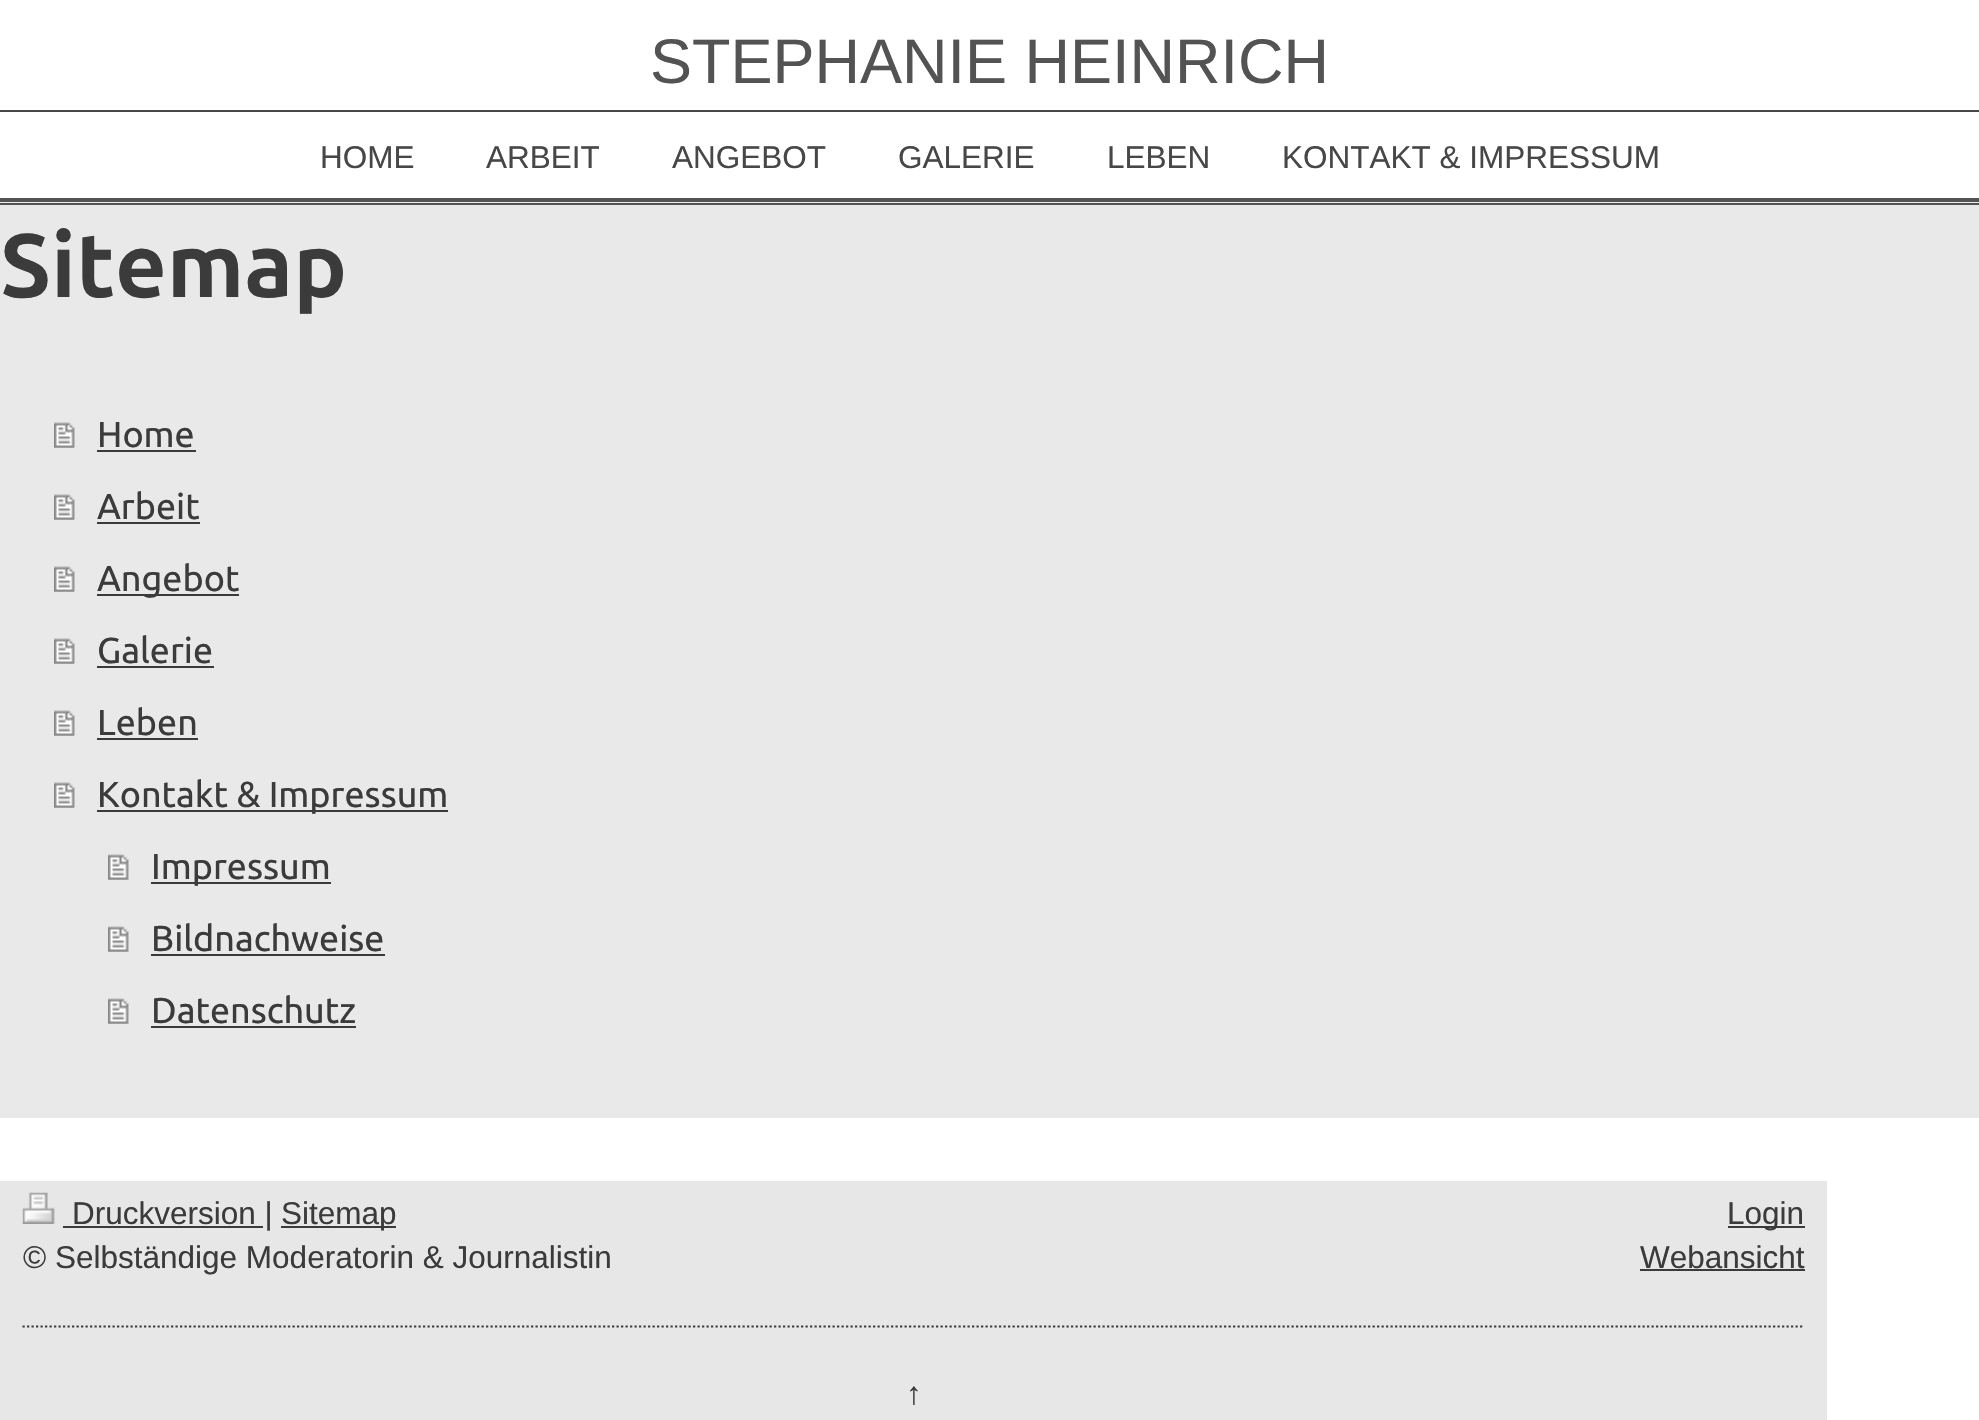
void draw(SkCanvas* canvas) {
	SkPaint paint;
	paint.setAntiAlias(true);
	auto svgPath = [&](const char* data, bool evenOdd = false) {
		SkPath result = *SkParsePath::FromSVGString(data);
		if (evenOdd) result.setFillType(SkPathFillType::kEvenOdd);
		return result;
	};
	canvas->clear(0xffffffff);
	SkFont f1(fontMgr->matchFamilyStyle("Liberation Sans", SkFontStyle::Normal()), 63);
	f1.setSubpixel(true);
	paint.setColor(0xff535353);
	canvas->drawString("STEPHANIE HEINRICH", 650, 83, f1, paint);
	paint.setColor(0xff474747);
	canvas->drawRect(SkRect::MakeXYWH(0, 110, 1979, 2), paint);
	paint.setColor(0xff535353);
	canvas->drawRect(SkRect::MakeXYWH(0, 198, 1979, 4), paint);
	SkFont f2(fontMgr->matchFamilyStyle("Liberation Sans", SkFontStyle::Normal()), 31.5);
	f2.setSubpixel(true);
	paint.setColor(0xff474747);
	canvas->drawString("HOME", 320, 168, f2, paint);
	canvas->drawString("ARBEIT", 486, 168, f2, paint);
	canvas->drawString("ANGEBOT", 672, 168, f2, paint);
	canvas->drawString("GALERIE", 898, 168, f2, paint);
	canvas->drawString("LEBEN", 1107, 168, f2, paint);
	canvas->drawString("KONTAKT & IMPRESSUM", 1282, 168, f2, paint);
	paint.setColor(0xffededed);
	canvas->drawRect(SkRect::MakeXYWH(0, 202, 1979, 1), paint);
	paint.setColor(0xff535353);
	canvas->drawRect(SkRect::MakeXYWH(0, 203, 1979, 2), paint);
	paint.setColor(0xffe9e9e9);
	canvas->drawRect(SkRect::MakeXYWH(0, 205, 1979, 913), paint);
	SkFont f3(fontMgr->matchFamilyStyle("Ubuntu", SkFontStyle::Bold()), 90);
	f3.setSubpixel(true);
	paint.setColor(0xff3b3b3b);
	canvas->drawString("Sitemap", 0, 297, f3, paint);
	canvas->drawImageRect(SkImages::DeferredFromEncodedData(SkData::MakeFromFileName("img1.png")), SkRect::MakeXYWH(54, 422, 21, 26), SkSamplingOptions());
	SkFont f4(fontMgr->matchFamilyStyle("Ubuntu", SkFontStyle::Normal()), 36);
	f4.setSubpixel(true);
	canvas->drawString("Home", 97, 447, f4, paint);
	canvas->drawRect(SkRect::MakeXYWH(97, 450, 99, 2), paint);
	canvas->drawImageRect(SkImages::DeferredFromEncodedData(SkData::MakeFromFileName("img1.png")), SkRect::MakeXYWH(54, 494, 21, 26), SkSamplingOptions());
	canvas->drawString("Arbeit", 97, 519, f4, paint);
	canvas->drawRect(SkRect::MakeXYWH(97, 522, 103, 2), paint);
	canvas->drawImageRect(SkImages::DeferredFromEncodedData(SkData::MakeFromFileName("img2.png")), SkRect::MakeXYWH(54, 566, 21, 26), SkSamplingOptions());
	canvas->drawRect(SkRect::MakeXYWH(97, 594, 142, 2), paint);
	canvas->drawString("Angebot", 97, 591, f4, paint);
	canvas->drawImageRect(SkImages::DeferredFromEncodedData(SkData::MakeFromFileName("img1.png")), SkRect::MakeXYWH(54, 638, 21, 26), SkSamplingOptions());
	canvas->drawString("Galerie", 97, 663, f4, paint);
	canvas->drawRect(SkRect::MakeXYWH(97, 666, 117, 2), paint);
	canvas->drawImageRect(SkImages::DeferredFromEncodedData(SkData::MakeFromFileName("img1.png")), SkRect::MakeXYWH(54, 710, 21, 26), SkSamplingOptions());
	canvas->drawString("Leben", 97, 735, f4, paint);
	canvas->drawRect(SkRect::MakeXYWH(97, 738, 101, 2), paint);
	canvas->drawImageRect(SkImages::DeferredFromEncodedData(SkData::MakeFromFileName("img3.png")), SkRect::MakeXYWH(54, 782, 21, 26), SkSamplingOptions());
	canvas->drawRect(SkRect::MakeXYWH(97, 810, 351, 2), paint);
	canvas->drawString("Kontakt & Impressum", 97, 807, f4, paint);
	canvas->drawImageRect(SkImages::DeferredFromEncodedData(SkData::MakeFromFileName("img4.png")), SkRect::MakeXYWH(108, 854, 21, 26), SkSamplingOptions());
	canvas->drawRect(SkRect::MakeXYWH(151, 882, 180, 2), paint);
	canvas->drawString("Impressum", 151, 879, f4, paint);
	canvas->drawImageRect(SkImages::DeferredFromEncodedData(SkData::MakeFromFileName("img4.png")), SkRect::MakeXYWH(108, 926, 21, 26), SkSamplingOptions());
	canvas->drawString("Bildnachweise", 151, 951, f4, paint);
	canvas->drawRect(SkRect::MakeXYWH(151, 954, 234, 2), paint);
	canvas->drawImageRect(SkImages::DeferredFromEncodedData(SkData::MakeFromFileName("img4.png")), SkRect::MakeXYWH(108, 998, 21, 26), SkSamplingOptions());
	canvas->drawString("Datenschutz", 151, 1023, f4, paint);
	canvas->drawRect(SkRect::MakeXYWH(151, 1026, 205, 2), paint);
	paint.setColor(0xffe7e7e7);
	canvas->drawRect(SkRect::MakeXYWH(0, 1181, 1827, 239), paint);
	canvas->drawImageRect(SkImages::DeferredFromEncodedData(SkData::MakeFromFileName("img5.png")), SkRect::MakeXYWH(22, 1192, 33, 32), SkSamplingOptions());
	paint.setColor(0xff3b3b3b);
	canvas->drawRect(SkRect::MakeXYWH(63, 1226, 200, 2), paint);
	canvas->drawString("Druckversion |", 72, 1224, f2, paint);
	canvas->drawRect(SkRect::MakeXYWH(281, 1226, 115, 2), paint);
	canvas->drawString("Sitemap", 281, 1224, f2, paint);
	canvas->drawString("© Selbständige Moderatorin & Journalistin", 23, 1268, f2, paint);
	canvas->drawRect(SkRect::MakeXYWH(1728, 1226, 77, 2), paint);
	canvas->drawString("Login", 1727, 1224, f2, paint);
	canvas->drawString("Webansicht", 1640, 1268, f2, paint);
	canvas->drawRect(SkRect::MakeXYWH(1640, 1269, 165, 2), paint);
	paint.setStroke(true);
	paint.setStrokeWidth(2.2);
	paint.setPathEffect(SkDashPathEffect::Make({{2.25f, 2.25f}}, 0));
	canvas->drawPath(svgPath("M22.5 1326.5H1804.5"), paint);
	paint.setPathEffect(nullptr);
	paint.setStroke(false);
	canvas->drawString("↑", 906, 1404, f2, paint);
}
